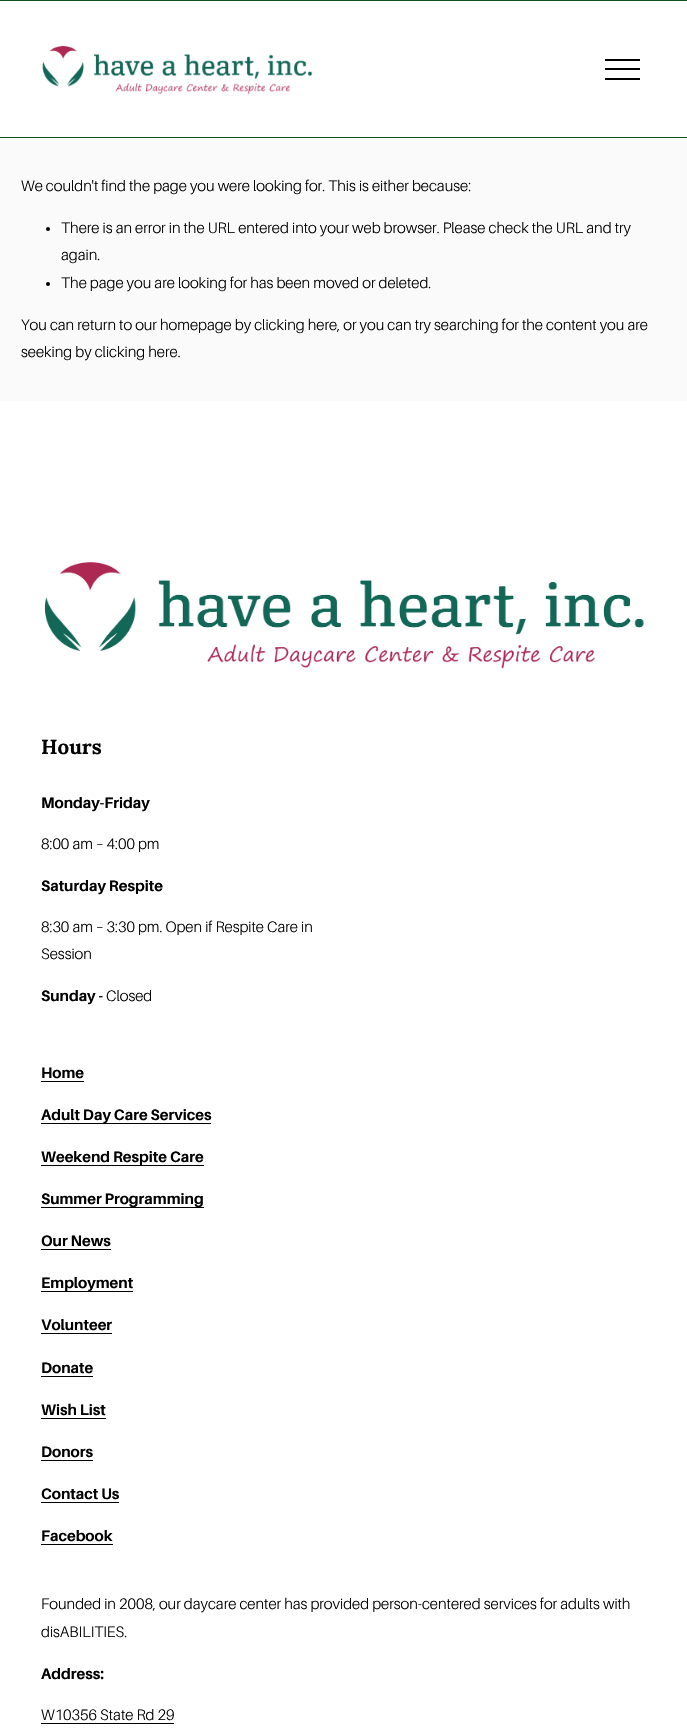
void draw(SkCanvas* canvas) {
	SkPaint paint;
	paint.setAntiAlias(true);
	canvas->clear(0xfffafafa);
	paint.setColor(0xffffffff);
	canvas->drawRect(SkRect::MakeXYWH(0, 1, 687, 136), paint);
	paint.setColor(0xff0f5220);
	canvas->drawRect(SkRect::MakeXYWH(0, 0, 687, 1), paint);
	canvas->drawRect(SkRect::MakeXYWH(0, 137, 687, 1), paint);
	canvas->drawImageRect(SkImages::DeferredFromEncodedData(SkData::MakeFromFileName("img1.png")), SkRect::MakeXYWH(42, 45, 271, 50), SkSamplingOptions());
	paint.setColor(0xff000000);
	canvas->drawRect(SkRect::MakeXYWH(605, 59, 35, 2), paint);
	canvas->drawRect(SkRect::MakeXYWH(605, 68, 35, 2), paint);
	canvas->drawRect(SkRect::MakeXYWH(605, 78, 35, 2), paint);
	SkFont f1(fontMgr->matchFamilyStyle("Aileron", SkFontStyle(300, SkFontStyle::kNormal_Width, SkFontStyle::kUpright_Slant)), 15.1);
	f1.setSubpixel(true);
	canvas->drawString("We couldn't find the page you were looking for. This is either because:", 21, 191, f1, paint);
	canvas->drawCircle(48, 229, 2, paint);
	canvas->drawString("There is an error in the URL entered into your web browser. Please check the URL and try", 61, 233, f1, paint);
	canvas->drawString("again.", 61, 260, f1, paint);
	canvas->drawCircle(48, 284, 2, paint);
	canvas->drawString("The page you are looking for has been moved or deleted.", 61, 288, f1, paint);
	canvas->drawString("You can return to our homepage by clicking here, or you can try searching for the content you are", 21, 330, f1, paint);
	canvas->drawString("seeking by clicking here.", 21, 357, f1, paint);
	paint.setColor(0xffffffff);
	canvas->drawRect(SkRect::MakeXYWH(0, 401, 687, 1330), paint);
	canvas->drawImageRect(SkImages::DeferredFromEncodedData(SkData::MakeFromFileName("img2.png")), SkRect::MakeXYWH(44, 562, 600, 107), SkSamplingOptions());
	SkFont f2(fontMgr->matchFamilyStyle("Lora", SkFontStyle::Bold()), 20.5);
	f2.setSubpixel(true);
	paint.setColor(0xff000000);
	canvas->drawString("Hours", 41, 754, f2, paint);
	SkFont f3(fontMgr->matchFamilyStyle("Aileron", SkFontStyle::Bold()), 15.1);
	f3.setSubpixel(true);
	canvas->drawString("Monday-Friday", 41, 808, f3, paint);
	canvas->drawString("8:00 am – 4:00 pm", 41, 849, f1, paint);
	canvas->drawString("Saturday Respite", 41, 891, f3, paint);
	canvas->drawString("8:30 am – 3:30 pm. Open if Respite Care in", 41, 932, f1, paint);
	canvas->drawString("Session", 41, 959, f1, paint);
	canvas->drawString("Sunday -", 41, 1001, f3, paint);
	canvas->drawString("Closed", 106, 1001, f1, paint);
	canvas->drawString("Home", 41, 1078, f3, paint);
	canvas->drawRect(SkRect::MakeXYWH(41, 1081, 43, 1), paint);
	canvas->drawRect(SkRect::MakeXYWH(41, 1123, 170, 1), paint);
	canvas->drawString("Adult Day Care Services", 41, 1120, f3, paint);
	canvas->drawString("Weekend Respite Care", 41, 1162, f3, paint);
	canvas->drawRect(SkRect::MakeXYWH(41, 1165, 163, 1), paint);
	canvas->drawRect(SkRect::MakeXYWH(41, 1207, 163, 1), paint);
	canvas->drawString("Summer Programming", 41, 1204, f3, paint);
	canvas->drawString("Our News", 41, 1246, f3, paint);
	canvas->drawRect(SkRect::MakeXYWH(41, 1249, 70, 1), paint);
	canvas->drawRect(SkRect::MakeXYWH(41, 1291, 92, 1), paint);
	canvas->drawString("Employment", 41, 1288, f3, paint);
	canvas->drawString("Volunteer", 41, 1330, f3, paint);
	canvas->drawRect(SkRect::MakeXYWH(41, 1333, 71, 1), paint);
	canvas->drawString("Donate", 41, 1373, f3, paint);
	canvas->drawRect(SkRect::MakeXYWH(41, 1376, 52, 1), paint);
	canvas->drawString("Wish List", 41, 1415, f3, paint);
	canvas->drawRect(SkRect::MakeXYWH(41, 1418, 65, 1), paint);
	canvas->drawString("Donors", 41, 1457, f3, paint);
	canvas->drawRect(SkRect::MakeXYWH(41, 1460, 52, 1), paint);
	canvas->drawString("Contact Us", 41, 1499, f3, paint);
	canvas->drawRect(SkRect::MakeXYWH(41, 1502, 78, 1), paint);
	canvas->drawString("Facebook", 41, 1541, f3, paint);
	canvas->drawRect(SkRect::MakeXYWH(41, 1544, 72, 1), paint);
	canvas->drawString("Founded in 2008, our daycare center has provided person-centered services for adults with", 41, 1609, f1, paint);
	canvas->drawString("disABILITIES.", 41, 1637, f1, paint);
	canvas->drawString("Address:", 41, 1679, f3, paint);
	canvas->drawString("W10356 State Rd 29", 41, 1720, f1, paint);
	canvas->drawRect(SkRect::MakeXYWH(41, 1723, 133, 1), paint);
}
